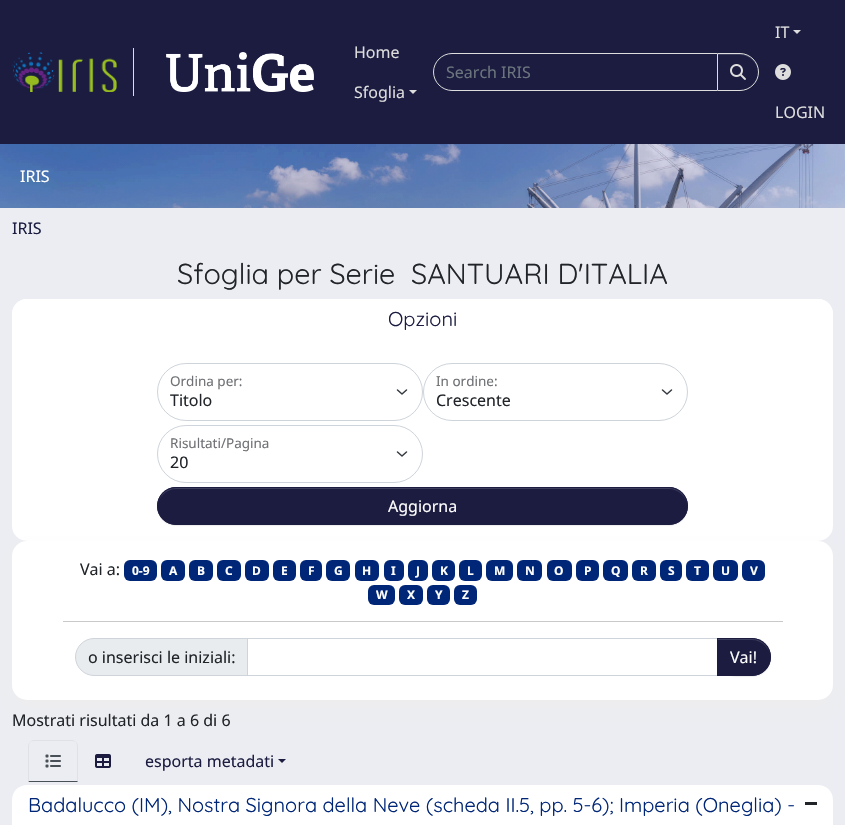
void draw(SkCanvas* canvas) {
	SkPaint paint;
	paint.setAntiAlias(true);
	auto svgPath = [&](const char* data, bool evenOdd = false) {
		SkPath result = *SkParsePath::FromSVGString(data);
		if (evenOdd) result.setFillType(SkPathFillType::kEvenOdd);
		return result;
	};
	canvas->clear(0xffecedf2);
	paint.setColor(0xff1b1c40);
	canvas->drawRect(SkRect::MakeXYWH(0, 0, 845, 144), paint);
	paint.setColor(0xffdddddd);
	canvas->drawRect(SkRect::MakeXYWH(133, 48, 1, 48), paint);
	canvas->drawImageRect(SkImages::DeferredFromEncodedData(SkData::MakeFromFileName("img1.png")), SkRect::MakeXYWH(12, 52, 105, 40), SkSamplingOptions());
	canvas->drawImageRect(SkImages::DeferredFromEncodedData(SkData::MakeFromFileName("img2.png")), SkRect::MakeXYWH(166, 52, 148, 40), SkSamplingOptions());
	SkFont f1(fontMgr->matchFamilyStyle("Noto Sans", SkFontStyle::Normal()), 16);
	f1.setSubpixel(true);
	canvas->drawString("Home", 354, 58, f1, paint);
	canvas->drawString("Sfoglia", 354, 98, f1, paint);
	canvas->drawPath(svgPath("M409 90H417L413 94Z"), paint);
	paint.setStroke(true);
	paint.setStrokeWidth(1);
	canvas->drawPath(svgPath("M452 53.5H717.5V90.5H452C442 90.5 433.5 82 433.5 72C433.5 62 442 53.5 452 53.5Z"), paint);
	paint.setStroke(false);
	paint.setColor(0xff6c757d);
	canvas->drawString("Search IRIS", 446, 78, f1, paint);
	paint.setColor(0x12000000);
	paint.setMaskFilter(SkMaskFilter::MakeBlur(kNormal_SkBlurStyle, 0.5));
	canvas->drawRoundRect(SkRect::MakeXYWH(717, 54, 42, 38), 19, 19, paint);
	paint.setMaskFilter(nullptr);
	paint.setColor(0xff1b1c40);
	canvas->drawPath(svgPath("M717 53H740C750.5 53 759 61.5 759 72C759 82.5 750.5 91 740 91H717Z"), paint);
	paint.setColor(0xff3d3e5d);
	canvas->drawPath(svgPath("M718 55H740C750 55 758 63 758 72C758 64 752 56 744 54H718Z"), paint);
	paint.setStroke(true);
	paint.setColor(0xffdddddd);
	canvas->drawPath(svgPath("M717.5 53.5H740C750 53.5 758.5 62 758.5 72C758.5 82 750 90.5 740 90.5H717.5Z"), paint);
	canvas->drawImageRect(SkImages::DeferredFromEncodedData(SkData::MakeFromFileName("img3.png")), SkRect::MakeXYWH(730, 64, 16, 16), SkSamplingOptions());
	paint.setStroke(false);
	canvas->drawString("IT", 775, 38, f1, paint);
	canvas->drawPath(svgPath("M793 30H801L797 34Z"), paint);
	canvas->drawImageRect(SkImages::DeferredFromEncodedData(SkData::MakeFromFileName("img4.png")), SkRect::MakeXYWH(775, 64, 16, 16), SkSamplingOptions());
	canvas->drawString("LOGIN", 775, 118, f1, paint);
	canvas->drawImageRect(SkImages::DeferredFromEncodedData(SkData::MakeFromFileName("img5.png")), SkRect::MakeXYWH(0, 144, 845, 64), SkSamplingOptions());
	paint.setColor(0xffffffff);
	canvas->drawString("IRIS", 20, 182, f1, paint);
	paint.setColor(0xff1b1c40);
	canvas->drawString("IRIS", 12, 234, f1, paint);
	SkFont f2(fontMgr->matchFamilyStyle("Quicksand", SkFontStyle(300, SkFontStyle::kNormal_Width, SkFontStyle::kUpright_Slant)), 28.75);
	f2.setSubpixel(true);
	paint.setColor(0xff212529);
	canvas->drawString("Sfoglia per Serie  SANTUARI D'ITALIA", 177, 284, f2, paint);
	paint.setColor(0xffffffff);
	canvas->drawRoundRect(SkRect::MakeXYWH(12, 299, 821, 242), 15, 15, paint);
	canvas->drawPath(svgPath("M27 299H818C826.5 299 833 305.5 833 314V347H12V314C12 305.5 18.5 299 27 299Z"), paint);
	SkFont f3(fontMgr->matchFamilyStyle("Quicksand", SkFontStyle(300, SkFontStyle::kNormal_Width, SkFontStyle::kUpright_Slant)), 20);
	f3.setSubpixel(true);
	paint.setColor(0xff1b1c40);
	canvas->drawString("Opzioni", 388, 326, f3, paint);
	paint.setStroke(true);
	paint.setStrokeWidth(1.5);
	paint.setStrokeCap(SkPaint::kRound_Cap);
	paint.setStrokeJoin(SkPaint::kRound_Join);
	paint.setColor(0xff343a40);
	canvas->drawPath(svgPath("M397.5 390L402 394L406.5 390"), paint);
	paint.setStrokeWidth(1);
	paint.setStrokeCap(SkPaint::kButt_Cap);
	paint.setStrokeJoin(SkPaint::kMiter_Join);
	paint.setColor(0xffced4da);
	canvas->drawRoundRect(SkRect::MakeXYWH(157.5, 363.5, 265, 57), 28.5, 28.5, paint);
	SkFont f4(fontMgr->matchFamilyStyle("Noto Sans", SkFontStyle::Normal()), 13.5);
	f4.setSubpixel(true);
	paint.setStroke(false);
	paint.setColor(0xff6f7174);
	canvas->drawString("Ordina per:", 170, 386, f4, paint);
	paint.setColor(0xff212529);
	canvas->drawString("Titolo", 170, 406, f1, paint);
	paint.setStroke(true);
	paint.setStrokeWidth(1.5);
	paint.setStrokeCap(SkPaint::kRound_Cap);
	paint.setStrokeJoin(SkPaint::kRound_Join);
	paint.setColor(0xff343a40);
	canvas->drawPath(svgPath("M662.5 390L667 394L671.5 390"), paint);
	paint.setStrokeWidth(1);
	paint.setStrokeCap(SkPaint::kButt_Cap);
	paint.setStrokeJoin(SkPaint::kMiter_Join);
	paint.setColor(0xffced4da);
	canvas->drawRoundRect(SkRect::MakeXYWH(423.5, 363.5, 264, 57), 28.5, 28.5, paint);
	paint.setStroke(false);
	paint.setColor(0xff6f7174);
	canvas->drawString("In ordine:", 436, 386, f4, paint);
	paint.setColor(0xff212529);
	canvas->drawString("Crescente", 436, 406, f1, paint);
	paint.setStroke(true);
	paint.setStrokeWidth(1.5);
	paint.setStrokeCap(SkPaint::kRound_Cap);
	paint.setStrokeJoin(SkPaint::kRound_Join);
	paint.setColor(0xff343a40);
	canvas->drawPath(svgPath("M397.5 452L402 456L406.5 452"), paint);
	paint.setStrokeWidth(1);
	paint.setStrokeCap(SkPaint::kButt_Cap);
	paint.setStrokeJoin(SkPaint::kMiter_Join);
	paint.setColor(0xffced4da);
	canvas->drawRoundRect(SkRect::MakeXYWH(157.5, 425.5, 265, 57), 28.5, 28.5, paint);
	paint.setStroke(false);
	paint.setColor(0xff6f7174);
	canvas->drawString("Risultati/Pagina", 170, 448, f4, paint);
	paint.setColor(0xff212529);
	canvas->drawString("20", 170, 468, f1, paint);
	paint.setColor(0x12000000);
	paint.setMaskFilter(SkMaskFilter::MakeBlur(kNormal_SkBlurStyle, 0.5));
	canvas->drawRoundRect(SkRect::MakeXYWH(157, 488, 531, 38), 19, 19, paint);
	paint.setMaskFilter(nullptr);
	paint.setColor(0xff1b1c40);
	canvas->drawRoundRect(SkRect::MakeXYWH(157, 487, 531, 38), 19, 19, paint);
	paint.setColor(0xff3d3e5d);
	canvas->drawPath(svgPath("M176 489H669C679 489 687 497 687 506C687 496 679 488 669 488H176C166 488 158 496 158 506C158 497 166 489 176 489Z"), paint);
	paint.setStroke(true);
	paint.setColor(0xff1b1c40);
	canvas->drawRoundRect(SkRect::MakeXYWH(157.5, 487.5, 530, 37), 18.5, 18.5, paint);
	paint.setStroke(false);
	paint.setColor(0xffffffff);
	canvas->drawString("Aggiorna", 388, 512, f1, paint);
	paint.setColor(0xffeeeeee);
	paint.setMaskFilter(SkMaskFilter::MakeBlur(kNormal_SkBlurStyle, 7.5));
	canvas->drawRoundRect(SkRect::MakeXYWH(15, 554, 815, 153), 12, 12, paint);
	paint.setMaskFilter(nullptr);
	paint.setColor(0xffffffff);
	canvas->drawRoundRect(SkRect::MakeXYWH(12, 541, 821, 159), 15, 15, paint);
	paint.setColor(0xff212529);
	canvas->drawString("Vai a:", 80, 575, f1, paint);
	paint.setColor(0xff002677);
	canvas->drawRoundRect(SkRect::MakeXYWH(124, 560, 33, 21), 6, 6, paint);
	SkFont f5(fontMgr->matchFamilyStyle("Noto Sans", SkFontStyle::Bold()), 12);
	f5.setSubpixel(true);
	paint.setColor(0xffffffff);
	canvas->drawString("0-9", 132, 575, f5, paint);
	paint.setColor(0xff002677);
	canvas->drawRoundRect(SkRect::MakeXYWH(161, 560, 24, 21), 6, 6, paint);
	paint.setColor(0xffffffff);
	canvas->drawString("A", 169, 575, f5, paint);
	paint.setColor(0xff002677);
	canvas->drawRoundRect(SkRect::MakeXYWH(189, 560, 24, 21), 6, 6, paint);
	paint.setColor(0xffffffff);
	canvas->drawString("B", 197, 575, f5, paint);
	paint.setColor(0xff002677);
	canvas->drawRoundRect(SkRect::MakeXYWH(217, 560, 24, 21), 6, 6, paint);
	paint.setColor(0xffffffff);
	canvas->drawString("C", 225, 575, f5, paint);
	paint.setColor(0xff002677);
	canvas->drawRoundRect(SkRect::MakeXYWH(245, 560, 24, 21), 6, 6, paint);
	paint.setColor(0xffffffff);
	canvas->drawString("D", 252, 575, f5, paint);
	paint.setColor(0xff002677);
	canvas->drawRoundRect(SkRect::MakeXYWH(273, 560, 23, 21), 6, 6, paint);
	paint.setColor(0xffffffff);
	canvas->drawString("E", 281, 575, f5, paint);
	paint.setColor(0xff002677);
	canvas->drawRoundRect(SkRect::MakeXYWH(300, 560, 22, 21), 6, 6, paint);
	paint.setColor(0xffffffff);
	canvas->drawString("F", 308, 575, f5, paint);
	paint.setColor(0xff002677);
	canvas->drawRoundRect(SkRect::MakeXYWH(326, 560, 24, 21), 6, 6, paint);
	paint.setColor(0xffffffff);
	canvas->drawString("G", 334, 575, f5, paint);
	paint.setColor(0xff002677);
	canvas->drawRoundRect(SkRect::MakeXYWH(355, 560, 24, 21), 6, 6, paint);
	paint.setColor(0xffffffff);
	canvas->drawString("H", 362, 575, f5, paint);
	paint.setColor(0xff002677);
	canvas->drawRoundRect(SkRect::MakeXYWH(384, 560, 20, 21), 6, 6, paint);
	paint.setColor(0xffffffff);
	canvas->drawString("I", 391, 575, f5, paint);
	paint.setColor(0xff002677);
	canvas->drawRoundRect(SkRect::MakeXYWH(408, 560, 20, 21), 6, 6, paint);
	paint.setColor(0xffffffff);
	canvas->drawString("J", 416, 575, f5, paint);
	paint.setColor(0xff002677);
	canvas->drawRoundRect(SkRect::MakeXYWH(432, 560, 23, 21), 6, 6, paint);
	paint.setColor(0xffffffff);
	canvas->drawString("K", 440, 575, f5, paint);
	paint.setColor(0xff002677);
	canvas->drawRoundRect(SkRect::MakeXYWH(459, 560, 23, 21), 6, 6, paint);
	paint.setColor(0xffffffff);
	canvas->drawString("L", 467, 575, f5, paint);
	paint.setColor(0xff002677);
	canvas->drawRoundRect(SkRect::MakeXYWH(486, 560, 27, 21), 6, 6, paint);
	paint.setColor(0xffffffff);
	canvas->drawString("M", 494, 575, f5, paint);
	paint.setColor(0xff002677);
	canvas->drawRoundRect(SkRect::MakeXYWH(517, 560, 25, 21), 6, 6, paint);
	paint.setColor(0xffffffff);
	canvas->drawString("N", 525, 575, f5, paint);
	paint.setColor(0xff002677);
	canvas->drawRoundRect(SkRect::MakeXYWH(547, 560, 25, 21), 6, 6, paint);
	paint.setColor(0xffffffff);
	canvas->drawString("O", 554, 575, f5, paint);
	paint.setColor(0xff002677);
	canvas->drawRoundRect(SkRect::MakeXYWH(576, 560, 23, 21), 6, 6, paint);
	paint.setColor(0xffffffff);
	canvas->drawString("P", 584, 575, f5, paint);
	paint.setColor(0xff002677);
	canvas->drawRoundRect(SkRect::MakeXYWH(603, 560, 25, 21), 6, 6, paint);
	paint.setColor(0xffffffff);
	canvas->drawString("Q", 611, 575, f5, paint);
	paint.setColor(0xff002677);
	canvas->drawRoundRect(SkRect::MakeXYWH(632, 560, 24, 21), 6, 6, paint);
	paint.setColor(0xffffffff);
	canvas->drawString("R", 640, 575, f5, paint);
	paint.setColor(0xff002677);
	canvas->drawRoundRect(SkRect::MakeXYWH(660, 560, 22, 21), 6, 6, paint);
	paint.setColor(0xffffffff);
	canvas->drawString("S", 668, 575, f5, paint);
	paint.setColor(0xff002677);
	canvas->drawRoundRect(SkRect::MakeXYWH(686, 560, 23, 21), 6, 6, paint);
	paint.setColor(0xffffffff);
	canvas->drawString("T", 694, 575, f5, paint);
	paint.setColor(0xff002677);
	canvas->drawRoundRect(SkRect::MakeXYWH(713, 560, 25, 21), 6, 6, paint);
	paint.setColor(0xffffffff);
	canvas->drawString("U", 721, 575, f5, paint);
	paint.setColor(0xff002677);
	canvas->drawRoundRect(SkRect::MakeXYWH(742, 560, 23, 21), 6, 6, paint);
	paint.setColor(0xffffffff);
	canvas->drawString("V", 750, 575, f5, paint);
	paint.setColor(0xff002677);
	canvas->drawRoundRect(SkRect::MakeXYWH(368, 585, 27, 20), 6, 6, paint);
	paint.setColor(0xffffffff);
	canvas->drawString("W", 376, 599, f5, paint);
	paint.setColor(0xff002677);
	canvas->drawRoundRect(SkRect::MakeXYWH(399, 585, 24, 20), 6, 6, paint);
	paint.setColor(0xffffffff);
	canvas->drawString("X", 407, 599, f5, paint);
	paint.setColor(0xff002677);
	canvas->drawRoundRect(SkRect::MakeXYWH(427, 585, 23, 20), 6, 6, paint);
	paint.setColor(0xffffffff);
	canvas->drawString("Y", 435, 599, f5, paint);
	paint.setColor(0xff002677);
	canvas->drawRoundRect(SkRect::MakeXYWH(454, 585, 23, 20), 6, 6, paint);
	paint.setColor(0xffffffff);
	canvas->drawString("Z", 462, 599, f5, paint);
	paint.setColor(0xffc8c9ca);
	canvas->drawRect(SkRect::MakeXYWH(63, 621, 720, 1), paint);
	paint.setColor(0xffe9ecef);
	canvas->drawPath(svgPath("M94 638.5H247.5V675.5H94C84 675.5 75.5 667 75.5 657C75.5 647 84 638.5 94 638.5Z"), paint);
	paint.setStroke(true);
	paint.setColor(0xffced4da);
	canvas->drawPath(svgPath("M94 638.5H247.5V675.5H94C84 675.5 75.5 667 75.5 657C75.5 647 84 638.5 94 638.5Z"), paint);
	paint.setStroke(false);
	paint.setColor(0xff212529);
	canvas->drawString("o inserisci le iniziali:", 88, 663, f1, paint);
	paint.setStroke(true);
	paint.setColor(0xffced4da);
	canvas->drawRect(SkRect::MakeXYWH(247.5, 638.5, 470, 37), paint);
	paint.setStroke(false);
	paint.setColor(0x12000000);
	paint.setMaskFilter(SkMaskFilter::MakeBlur(kNormal_SkBlurStyle, 0.5));
	canvas->drawRoundRect(SkRect::MakeXYWH(717, 639, 54, 38), 19, 19, paint);
	paint.setMaskFilter(nullptr);
	paint.setColor(0xff1b1c40);
	canvas->drawPath(svgPath("M717 638H752C762.5 638 771 646.5 771 657C771 667.5 762.5 676 752 676H717Z"), paint);
	paint.setColor(0xff3d3e5d);
	canvas->drawPath(svgPath("M718 640H752C762 640 770 648 770 657C770 649 764 641 756 639H718Z"), paint);
	paint.setStroke(true);
	paint.setColor(0xff1b1c40);
	canvas->drawPath(svgPath("M717.5 638.5H752C762 638.5 770.5 647 770.5 657C770.5 667 762 675.5 752 675.5H717.5Z"), paint);
	paint.setStroke(false);
	paint.setColor(0xffffffff);
	canvas->drawString("Vai!", 730, 663, f1, paint);
	paint.setColor(0xff212529);
	canvas->drawString("Mostrati risultati da 1 a 6 di 6", 12, 726, f1, paint);
	paint.setColor(0xffdee2e6);
	canvas->drawPath(svgPath("M34 740C32 740 31 741 30 742C31 742 32 741 34 741H72C74 741 75 742 76 742C75 741 74 740 72 740ZM78 782V746C78 744 77 743 76 742C76 743 77 744 77 746V781Z"), paint);
	paint.setColor(0xff495057);
	canvas->drawPath(svgPath("M78 782L77 781H29L28 782Z"), paint);
	paint.setColor(0xffdee2e6);
	canvas->drawPath(svgPath("M28 782L29 781V746C29 744 30 743 30 742C29 743 28 744 28 746Z"), paint);
	canvas->drawImageRect(SkImages::DeferredFromEncodedData(SkData::MakeFromFileName("img6.png")), SkRect::MakeXYWH(45, 754, 16, 14), SkSamplingOptions());
	canvas->drawImageRect(SkImages::DeferredFromEncodedData(SkData::MakeFromFileName("img7.png")), SkRect::MakeXYWH(95, 754, 16, 14), SkSamplingOptions());
	paint.setColor(0xff1b1c40);
	canvas->drawString("esporta metadati", 145, 767, f1, paint);
	canvas->drawPath(svgPath("M278 759H286L282 763Z"), paint);
	paint.setColor(0xffffffff);
	canvas->drawPath(svgPath("M27 785H818C826.5 785 833 791.5 833 800V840H12V800C12 791.5 18.5 785 27 785Z"), paint);
	paint.setColor(0xff002677);
	canvas->drawString("Badalucco (IM), Nostra Signora della Neve (scheda II.5, pp. 5-6); Imperia (Oneglia) -", 28, 812, f3, paint);
	paint.setColor(0xff212529);
	canvas->drawRect(SkRect::MakeXYWH(805, 802, 12, 3), paint);
}
